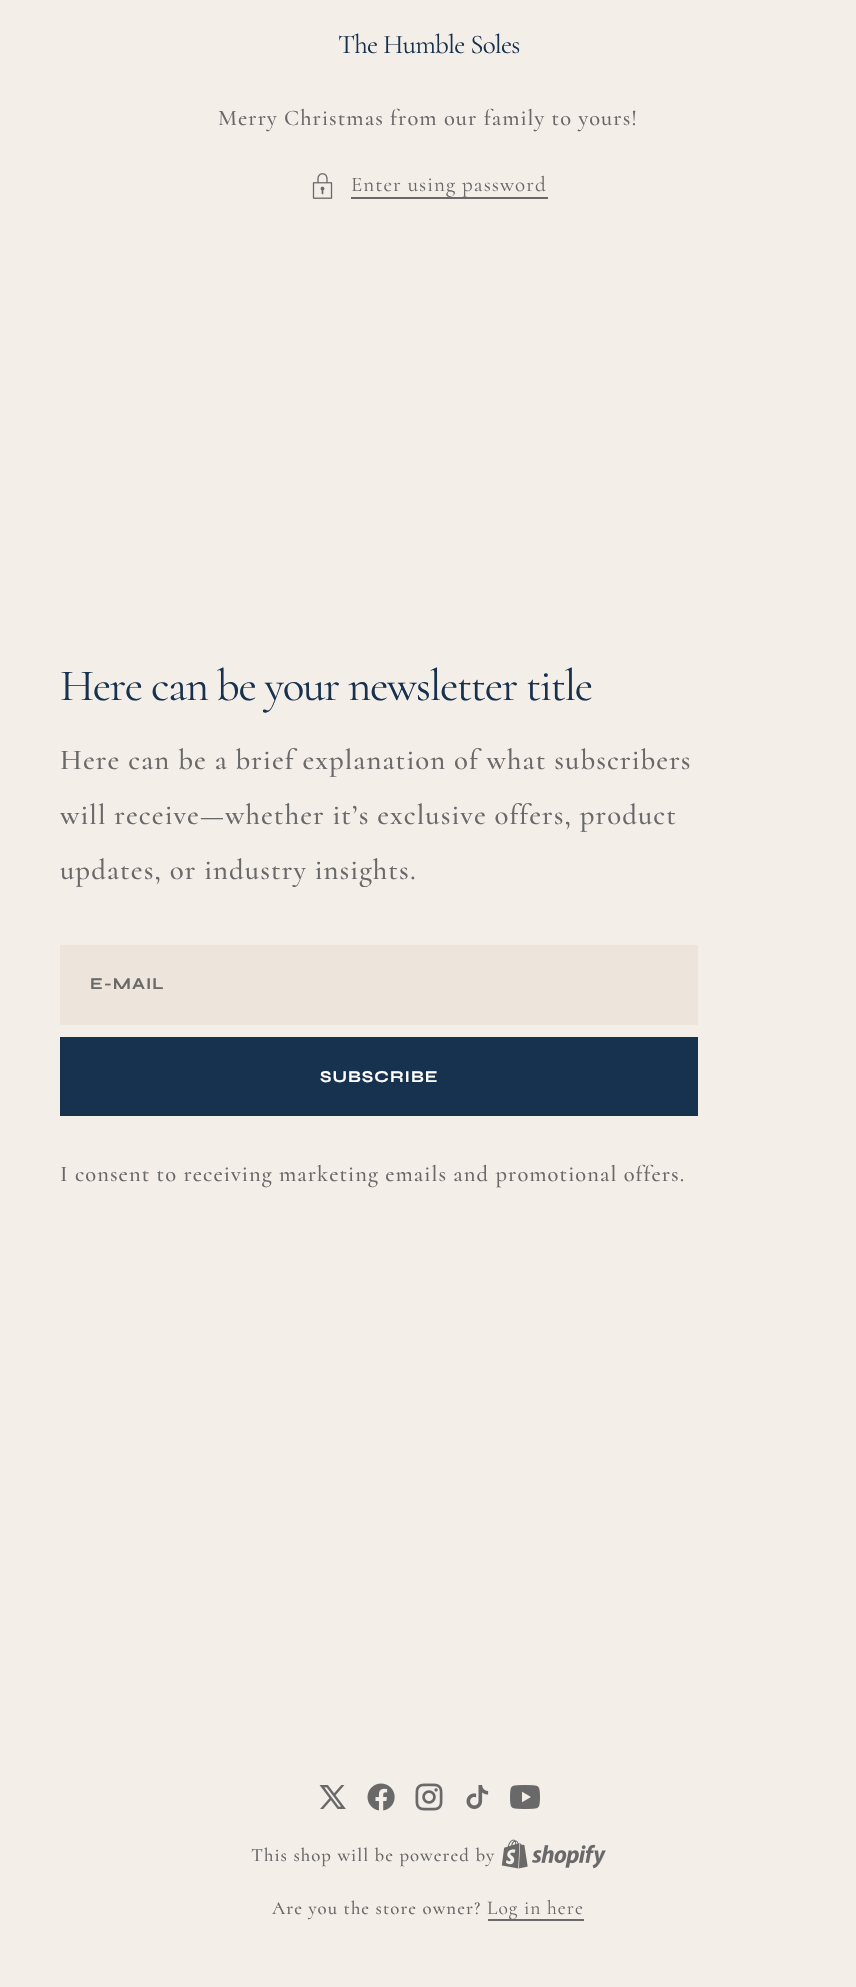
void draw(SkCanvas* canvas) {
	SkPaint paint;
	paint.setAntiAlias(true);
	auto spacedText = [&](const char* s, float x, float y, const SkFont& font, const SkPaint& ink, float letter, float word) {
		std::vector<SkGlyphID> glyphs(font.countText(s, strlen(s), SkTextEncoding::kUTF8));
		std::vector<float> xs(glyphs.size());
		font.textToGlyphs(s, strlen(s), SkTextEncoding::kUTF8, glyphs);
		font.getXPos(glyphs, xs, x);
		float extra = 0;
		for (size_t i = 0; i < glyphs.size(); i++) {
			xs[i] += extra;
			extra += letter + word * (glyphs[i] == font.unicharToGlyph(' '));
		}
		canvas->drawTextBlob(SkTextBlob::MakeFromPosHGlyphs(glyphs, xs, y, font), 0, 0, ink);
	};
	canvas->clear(0xfff4eee9);
	SkFont f1(fontMgr->matchFamilyStyle("Cormorant", SkFontStyle::Normal()), 27);
	f1.setSubpixel(true);
	paint.setColor(0xff17324e);
	spacedText("The Humble Soles", 338, 53, f1, paint, -0.75, 0);
	SkFont f2(fontMgr->matchFamilyStyle("Cormorant", SkFontStyle(500, SkFontStyle::kNormal_Width, SkFontStyle::kUpright_Slant)), 22.5);
	f2.setSubpixel(true);
	paint.setColor(0xff696969);
	spacedText("Merry Christmas from our family to yours!", 218, 125, f2, paint, 1.05, 0);
	canvas->drawImageRect(SkImages::DeferredFromEncodedData(SkData::MakeFromFileName("img1.png")), SkRect::MakeXYWH(312, 173, 21, 26), SkSamplingOptions());
	SkFont f3(fontMgr->matchFamilyStyle("Cormorant", SkFontStyle::Normal()), 21);
	f3.setSubpixel(true);
	spacedText("Enter using password", 351, 191, f3, paint, 1.05, 0);
	canvas->drawRect(SkRect::MakeXYWH(351, 197, 197, 2), paint);
	SkFont f4(fontMgr->matchFamilyStyle("Cormorant", SkFontStyle::Normal()), 45);
	f4.setSubpixel(true);
	paint.setColor(0xff17324e);
	spacedText("Here can be your newsletter title", 60, 700, f4, paint, -1.35, 0);
	SkFont f5(fontMgr->matchFamilyStyle("Cormorant", SkFontStyle(500, SkFontStyle::kNormal_Width, SkFontStyle::kUpright_Slant)), 28.8);
	f5.setSubpixel(true);
	paint.setColor(0xff696969);
	spacedText("Here can be a brief explanation of what subscribers", 60, 769, f5, paint, 1.05, 0);
	spacedText("will receive—whether it’s exclusive offers, product", 60, 824, f5, paint, 1.05, 0);
	spacedText("updates, or industry insights.", 60, 879, f5, paint, 1.05, 0);
	paint.setColor(0xffede4dc);
	canvas->drawRect(SkRect::MakeXYWH(60, 945, 638, 80), paint);
	SkFont f6(fontMgr->matchFamilyStyle("Syne", SkFontStyle::Bold()), 16.5);
	f6.setSubpixel(true);
	paint.setColor(0xff696969);
	spacedText("E-MAIL", 90, 989, f6, paint, 1, 0);
	paint.setColor(0xff17324e);
	canvas->drawRect(SkRect::MakeXYWH(60, 1037, 638, 79), paint);
	paint.setColor(0xffffffff);
	spacedText("SUBSCRIBE", 320, 1082, f6, paint, 1, 0);
	paint.setColor(0xff696969);
	spacedText("I consent to receiving marketing emails and promotional offers.", 60, 1181, f2, paint, 1.05, 0);
	canvas->drawImageRect(SkImages::DeferredFromEncodedData(SkData::MakeFromFileName("img2.png")), SkRect::MakeXYWH(319, 1785, 27, 24), SkSamplingOptions());
	canvas->drawImageRect(SkImages::DeferredFromEncodedData(SkData::MakeFromFileName("img3.png")), SkRect::MakeXYWH(367, 1783, 28, 28), SkSamplingOptions());
	canvas->drawImageRect(SkImages::DeferredFromEncodedData(SkData::MakeFromFileName("img4.png")), SkRect::MakeXYWH(415, 1783, 28, 28), SkSamplingOptions());
	canvas->drawImageRect(SkImages::DeferredFromEncodedData(SkData::MakeFromFileName("img5.png")), SkRect::MakeXYWH(466, 1785, 23, 24), SkSamplingOptions());
	canvas->drawImageRect(SkImages::DeferredFromEncodedData(SkData::MakeFromFileName("img6.png")), SkRect::MakeXYWH(510, 1785, 30, 24), SkSamplingOptions());
	SkFont f7(fontMgr->matchFamilyStyle("Cormorant", SkFontStyle(500, SkFontStyle::kNormal_Width, SkFontStyle::kUpright_Slant)), 18.75);
	f7.setSubpixel(true);
	spacedText("This shop will be powered by", 251, 1861, f7, paint, 1.05, 0);
	canvas->drawImageRect(SkImages::DeferredFromEncodedData(SkData::MakeFromFileName("img7.png")), SkRect::MakeXYWH(501, 1839, 105, 30), SkSamplingOptions());
	spacedText("Are you the store owner?", 272, 1914, f7, paint, 1.05, 0);
	canvas->drawRect(SkRect::MakeXYWH(488, 1919, 96, 2), paint);
	SkFont f8(fontMgr->matchFamilyStyle("Cormorant", SkFontStyle::Normal()), 19.5);
	f8.setSubpixel(true);
	spacedText("Log in here", 487, 1914, f8, paint, 1.05, 0);
}
